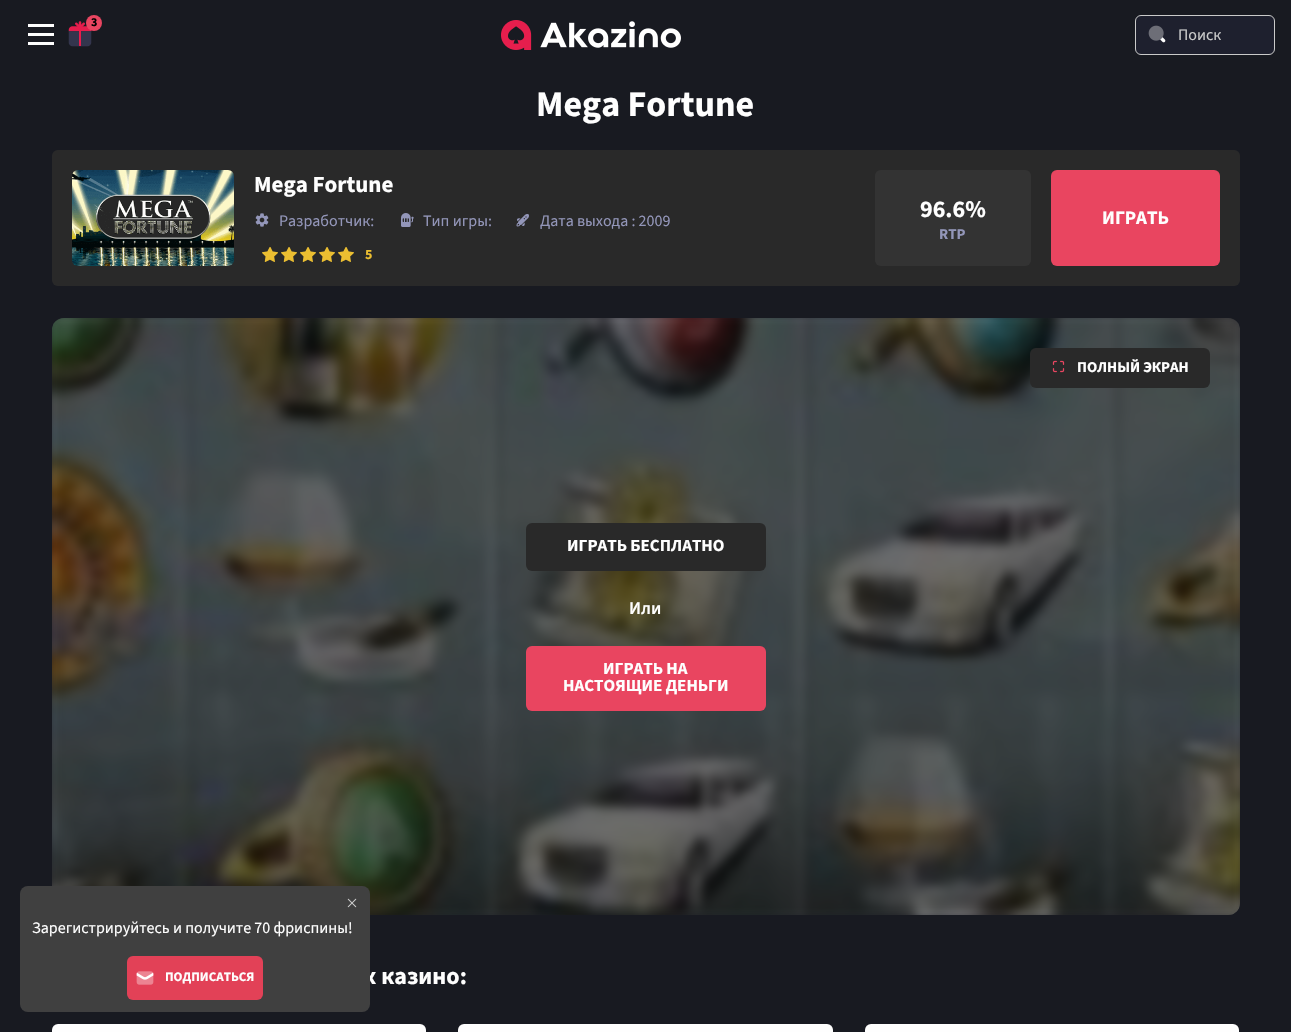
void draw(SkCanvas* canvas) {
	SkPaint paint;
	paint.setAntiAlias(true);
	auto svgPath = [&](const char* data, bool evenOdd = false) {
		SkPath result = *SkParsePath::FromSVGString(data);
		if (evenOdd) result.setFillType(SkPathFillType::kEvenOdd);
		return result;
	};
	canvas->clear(0xff181a21);
	paint.setColor(0xfffefefe);
	canvas->drawRect(SkRect::MakeXYWH(28, 33, 26, 3), paint);
	canvas->drawRect(SkRect::MakeXYWH(28, 24, 26, 3), paint);
	canvas->drawRect(SkRect::MakeXYWH(28, 42, 26, 3), paint);
	canvas->drawImageRect(SkImages::DeferredFromEncodedData(SkData::MakeFromFileName("img1.png")), SkRect::MakeXYWH(68, 21, 24, 26), SkSamplingOptions());
	paint.setColor(0xffe94561);
	canvas->drawCircle(94, 23, 8, paint);
	SkFont f1(fontMgr->matchFamilyStyle("Source Sans 3", SkFontStyle::Bold()), 12);
	f1.setSubpixel(true);
	paint.setColor(0xff000000);
	canvas->drawString("3", 91, 26, f1, paint);
	canvas->drawImageRect(SkImages::DeferredFromEncodedData(SkData::MakeFromFileName("img2.png")), SkRect::MakeXYWH(501, 20, 180, 30), SkSamplingOptions());
	paint.setColor(0xff1e202e);
	canvas->drawRoundRect(SkRect::MakeXYWH(1135.5, 15.5, 139, 39), 5.5, 5.5, paint);
	paint.setStroke(true);
	paint.setStrokeWidth(1);
	paint.setColor(0xffcacaca);
	canvas->drawRoundRect(SkRect::MakeXYWH(1135.5, 15.5, 139, 39), 5.5, 5.5, paint);
	canvas->drawImageRect(SkImages::DeferredFromEncodedData(SkData::MakeFromFileName("img3.png")), SkRect::MakeXYWH(1148, 25, 18, 18), SkSamplingOptions());
	SkFont f2(fontMgr->matchFamilyStyle("Source Sans 3", SkFontStyle::Normal()), 16);
	f2.setSubpixel(true);
	paint.setStroke(false);
	canvas->drawString("Поиск", 1178, 40, f2, paint);
	paint.setColor(0xff14151b);
	canvas->drawRoundRect(SkRect::MakeXYWH(52, 318, 1188, 597), 12, 12, paint);
	canvas->drawImageRect(SkImages::DeferredFromEncodedData(SkData::MakeFromFileName("img11.png")), SkRect::MakeXYWH(52, 318, 1188, 597), SkSamplingOptions());
	canvas->save();
	canvas->clipPath(svgPath("M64 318H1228C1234.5 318 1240 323.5 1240 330V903C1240 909.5 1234.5 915 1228 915H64C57.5 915 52 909.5 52 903V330C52 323.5 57.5 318 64 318Z"), true);
	paint.setColor(0x990a0a0a);
	paint.setMaskFilter(SkMaskFilter::MakeBlur(kNormal_SkBlurStyle, 4));
	canvas->drawRect(SkRect::MakeXYWH(52, 318, 1188, 597), paint);
	paint.setMaskFilter(nullptr);
	canvas->restore();
	SkFont f3(fontMgr->matchFamilyStyle("Source Sans 3", SkFontStyle::Bold()), 24);
	f3.setSubpixel(true);
	paint.setColor(0xfffefefe);
	canvas->drawString("х казино:", 364, 984, f3, paint);
	paint.setColor(0xff404040);
	canvas->drawRoundRect(SkRect::MakeXYWH(20, 886, 350, 126), 8, 8, paint);
	canvas->drawImageRect(SkImages::DeferredFromEncodedData(SkData::MakeFromFileName("img4.png")), SkRect::MakeXYWH(347, 898, 10, 10), SkSamplingOptions());
	paint.setColor(0xfffefefe);
	canvas->drawString("Зарегистрируйтесь и получите 70 фриспины!", 32, 933, f2, paint);
	paint.setColor(0xffe24157);
	canvas->drawRoundRect(SkRect::MakeXYWH(127, 956, 136, 44), 6, 6, paint);
	canvas->drawImageRect(SkImages::DeferredFromEncodedData(SkData::MakeFromFileName("img5.png")), SkRect::MakeXYWH(136, 971, 18, 14), SkSamplingOptions());
	SkFont f4(fontMgr->matchFamilyStyle("Source Sans 3", SkFontStyle::Bold()), 13);
	f4.setSubpixel(true);
	paint.setColor(0xfffefefe);
	canvas->drawString("ПОДПИСАТЬСЯ", 165, 981, f4, paint);
	SkFont f5(fontMgr->matchFamilyStyle("Source Sans 3", SkFontStyle::Bold()), 36);
	f5.setSubpixel(true);
	canvas->drawString("Mega Fortune", 536, 116, f5, paint);
	paint.setColor(0xff292929);
	canvas->drawRoundRect(SkRect::MakeXYWH(52, 150, 1188, 136), 6, 6, paint);
	canvas->drawImageRect(SkImages::DeferredFromEncodedData(SkData::MakeFromFileName("img6.png")), SkRect::MakeXYWH(72, 170, 162, 96), SkSamplingOptions());
	SkFont f6(fontMgr->matchFamilyStyle("Source Sans 3", SkFontStyle::Bold()), 23);
	f6.setSubpixel(true);
	paint.setColor(0xfffefefe);
	canvas->drawString("Mega Fortune", 254, 192, f6, paint);
	canvas->drawImageRect(SkImages::DeferredFromEncodedData(SkData::MakeFromFileName("img7.png")), SkRect::MakeXYWH(255, 213, 14, 14), SkSamplingOptions());
	paint.setColor(0xff9396b9);
	canvas->drawString("Разработчик:", 279, 226, f2, paint);
	canvas->drawImageRect(SkImages::DeferredFromEncodedData(SkData::MakeFromFileName("img8.png")), SkRect::MakeXYWH(401, 213, 13, 14), SkSamplingOptions());
	canvas->drawString("Тип игры:", 423, 226, f2, paint);
	canvas->drawImageRect(SkImages::DeferredFromEncodedData(SkData::MakeFromFileName("img9.png")), SkRect::MakeXYWH(516, 214, 13, 13), SkSamplingOptions());
	canvas->drawString("Дата выхода : 2009", 540, 226, f2, paint);
	canvas->drawImageRect(SkImages::DeferredFromEncodedData(SkData::MakeFromFileName("img10.png")), SkRect::MakeXYWH(262, 247, 16, 15), SkSamplingOptions());
	canvas->drawImageRect(SkImages::DeferredFromEncodedData(SkData::MakeFromFileName("img10.png")), SkRect::MakeXYWH(281, 247, 16, 15), SkSamplingOptions());
	canvas->drawImageRect(SkImages::DeferredFromEncodedData(SkData::MakeFromFileName("img10.png")), SkRect::MakeXYWH(300, 247, 16, 15), SkSamplingOptions());
	canvas->drawImageRect(SkImages::DeferredFromEncodedData(SkData::MakeFromFileName("img10.png")), SkRect::MakeXYWH(319, 247, 16, 15), SkSamplingOptions());
	canvas->drawImageRect(SkImages::DeferredFromEncodedData(SkData::MakeFromFileName("img10.png")), SkRect::MakeXYWH(338, 247, 16, 15), SkSamplingOptions());
	SkFont f7(fontMgr->matchFamilyStyle("Source Sans 3", SkFontStyle::Bold()), 14);
	f7.setSubpixel(true);
	paint.setColor(0xffebbe31);
	canvas->drawString("5", 365, 259, f7, paint);
	paint.setColor(0xff333333);
	canvas->drawRoundRect(SkRect::MakeXYWH(875, 170, 156, 96), 6, 6, paint);
	paint.setColor(0xfffefefe);
	canvas->drawString("96.6%", 920, 217, f3, paint);
	SkFont f8(fontMgr->matchFamilyStyle("Source Sans 3", SkFontStyle::Bold()), 15);
	f8.setSubpixel(true);
	paint.setColor(0xff9396b9);
	canvas->drawString("RTP", 939, 239, f8, paint);
	paint.setColor(0xffe94560);
	canvas->drawRoundRect(SkRect::MakeXYWH(1051, 170, 169, 96), 6, 6, paint);
	SkFont f9(fontMgr->matchFamilyStyle("Source Sans 3", SkFontStyle::Bold()), 19);
	f9.setSubpixel(true);
	paint.setColor(0xfffefefe);
	canvas->drawString("ИГРАТЬ", 1102, 224, f9, paint);
	paint.setColor(0xff292929);
	canvas->drawRoundRect(SkRect::MakeXYWH(1030, 348, 180, 40), 6, 6, paint);
	canvas->drawImageRect(SkImages::DeferredFromEncodedData(SkData::MakeFromFileName("img12.png")), SkRect::MakeXYWH(1052, 360, 13, 13), SkSamplingOptions());
	paint.setColor(0xfffefefe);
	canvas->drawString("ПОЛНЫЙ ЭКРАН", 1077, 372, f8, paint);
	paint.setColor(0xff292929);
	canvas->drawRoundRect(SkRect::MakeXYWH(526, 523, 240, 48), 6, 6, paint);
	SkFont f10(fontMgr->matchFamilyStyle("Source Sans 3", SkFontStyle::Bold()), 17);
	f10.setSubpixel(true);
	paint.setColor(0xfffefefe);
	canvas->drawString("ИГРАТЬ БЕСПЛАТНО", 567, 551, f10, paint);
	SkFont f11(fontMgr->matchFamilyStyle("Source Sans 3", SkFontStyle(600, SkFontStyle::kNormal_Width, SkFontStyle::kUpright_Slant)), 18);
	f11.setSubpixel(true);
	canvas->drawString("Или", 629, 614, f11, paint);
	paint.setColor(0xffe94560);
	canvas->drawRoundRect(SkRect::MakeXYWH(526, 646, 240, 65), 6, 6, paint);
	paint.setColor(0xfffefefe);
	canvas->drawString("ИГРАТЬ НА", 603, 674, f10, paint);
	canvas->drawString("НАСТОЯЩИЕ ДЕНЬГИ", 563, 691, f10, paint);
	canvas->drawRoundRect(SkRect::MakeXYWH(52, 1024, 374, 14), 6, 6, paint);
	canvas->drawRoundRect(SkRect::MakeXYWH(458, 1024, 375, 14), 6, 6, paint);
	canvas->drawRoundRect(SkRect::MakeXYWH(865, 1024, 374, 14), 6, 6, paint);
}
